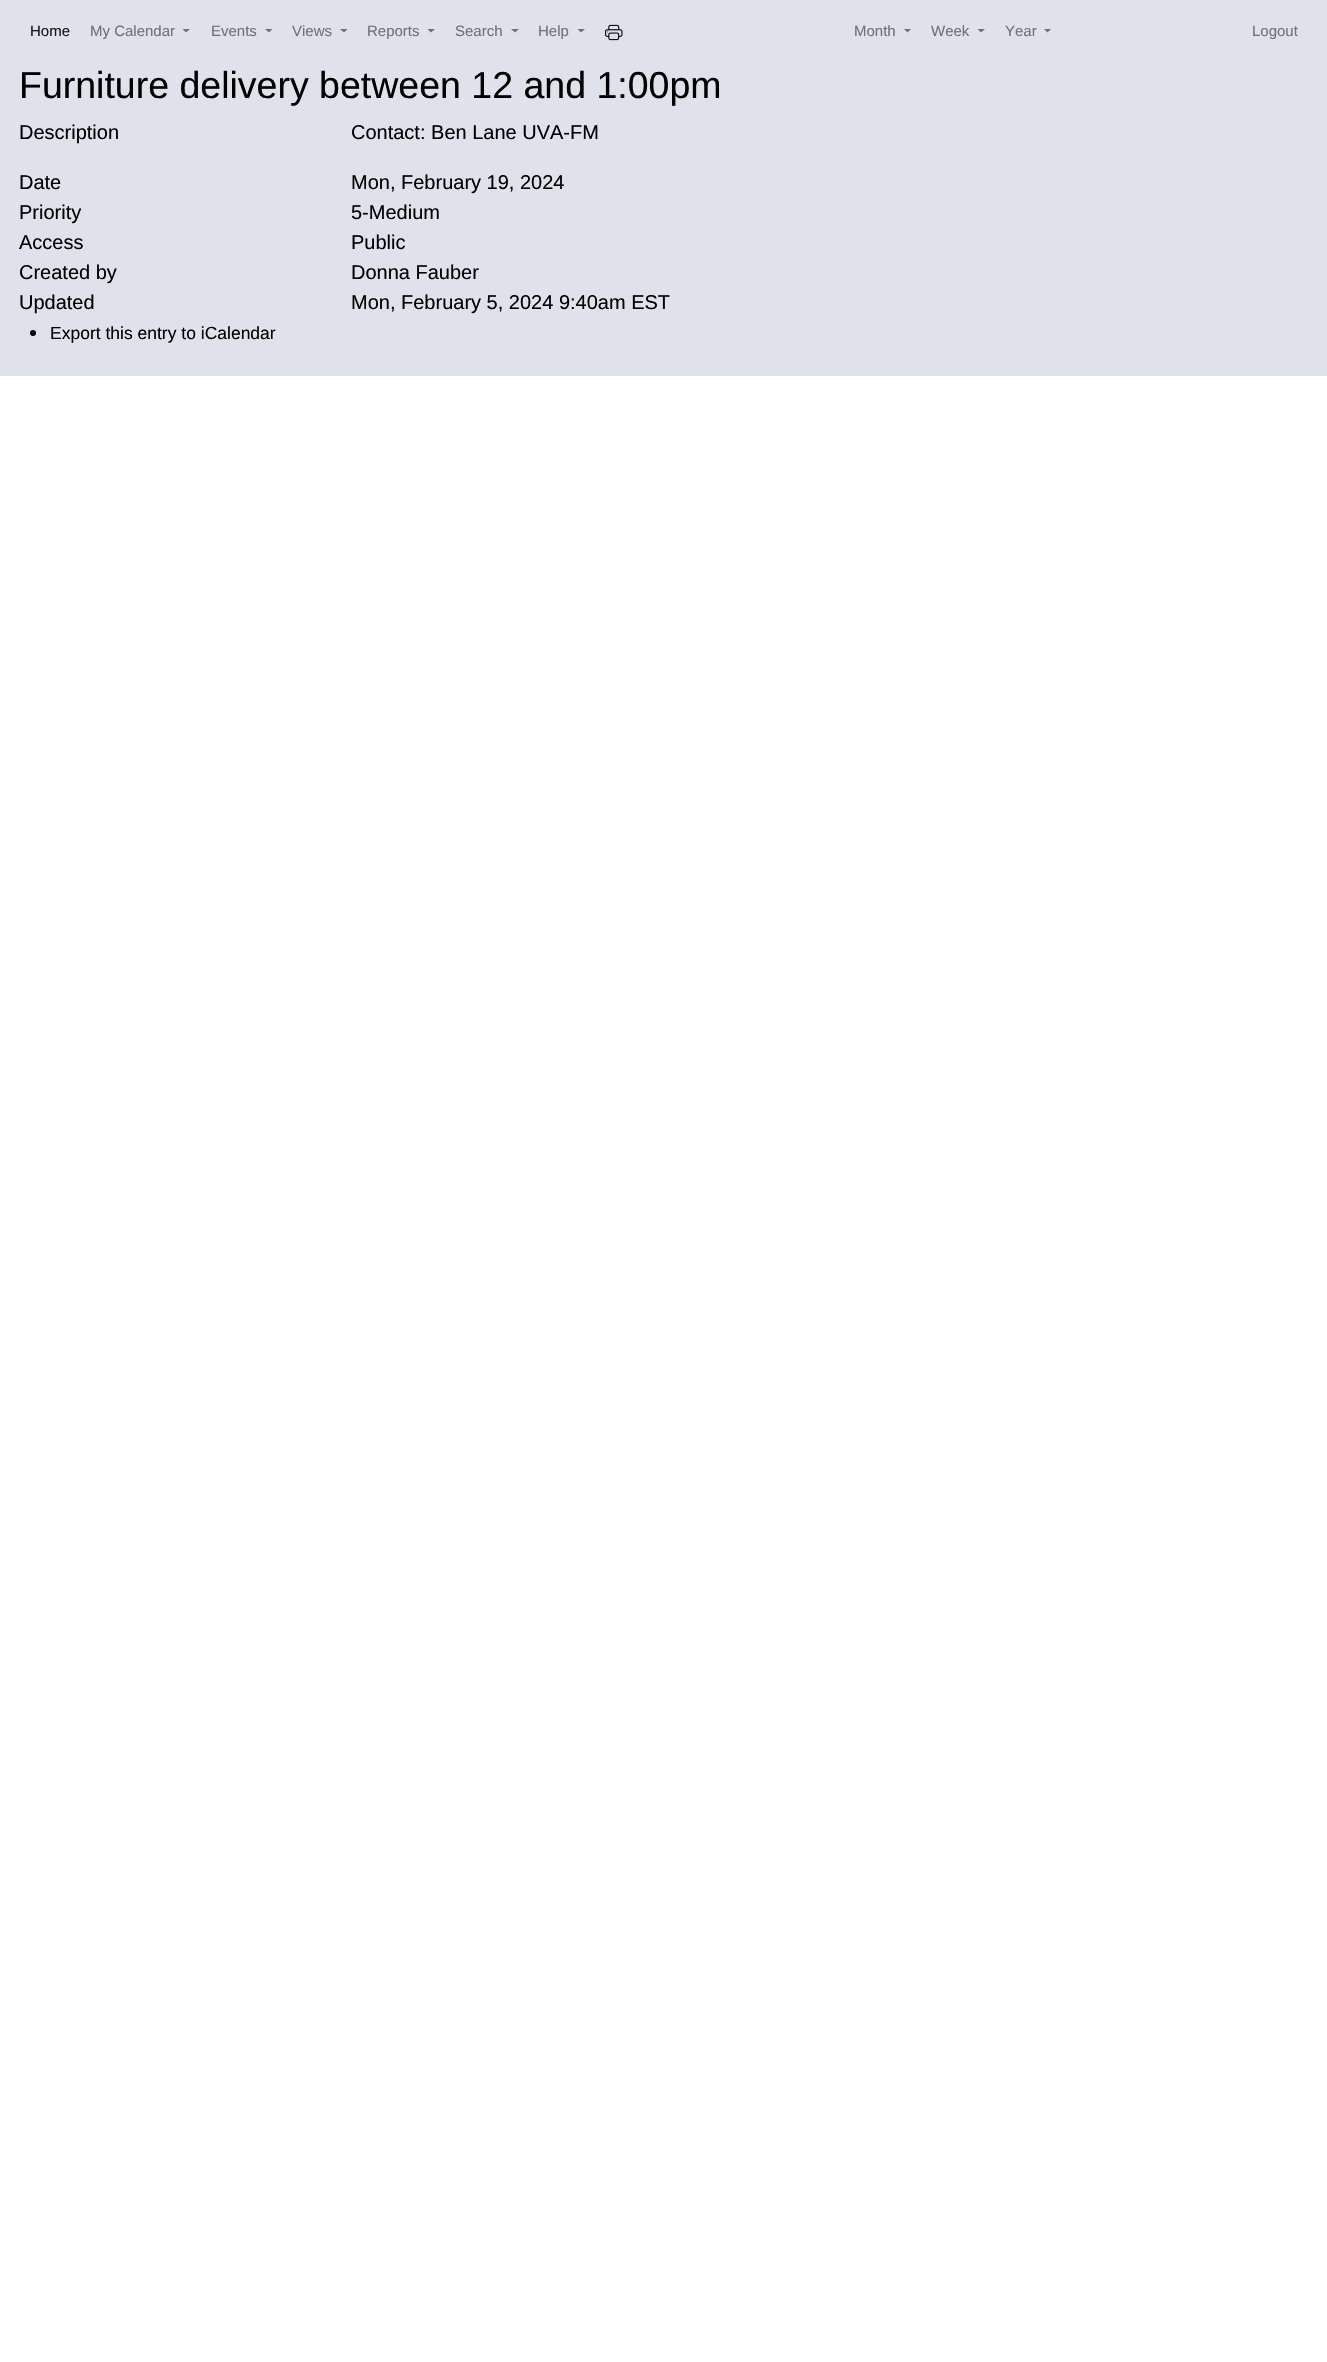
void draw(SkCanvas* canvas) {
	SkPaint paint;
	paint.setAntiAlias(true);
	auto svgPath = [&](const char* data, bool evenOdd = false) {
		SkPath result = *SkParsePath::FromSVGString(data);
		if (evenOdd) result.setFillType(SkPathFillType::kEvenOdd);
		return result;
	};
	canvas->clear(0xffffffff);
	paint.setColor(0xffe0e2eb);
	canvas->drawRect(SkRect::MakeXYWH(0, 0, 1327, 376), paint);
	SkFont f1(fontMgr->matchFamilyStyle("Liberation Sans", SkFontStyle::Normal()), 15);
	f1.setSubpixel(true);
	paint.setColor(0xff161718);
	canvas->drawString("Home", 30, 36, f1, paint);
	paint.setColor(0xff707176);
	canvas->drawString("My Calendar", 90, 36, f1, paint);
	canvas->drawPath(svgPath("M182.5 29H190L186 32.5Z"), paint);
	canvas->drawString("Events", 211, 36, f1, paint);
	canvas->drawPath(svgPath("M265 29H272.5L269 32.5Z"), paint);
	canvas->drawString("Views", 292, 36, f1, paint);
	canvas->drawPath(svgPath("M340 29H347.5L344 32.5Z"), paint);
	canvas->drawString("Reports", 367, 36, f1, paint);
	canvas->drawPath(svgPath("M427.5 29H435L431 32.5Z"), paint);
	canvas->drawString("Search", 455, 36, f1, paint);
	canvas->drawPath(svgPath("M511 29H519L515 32.5Z"), paint);
	canvas->drawString("Help", 538, 36, f1, paint);
	canvas->drawPath(svgPath("M577.5 29H585L581 32.5Z"), paint);
	canvas->drawImageRect(SkImages::DeferredFromEncodedData(SkData::MakeFromFileName("img1.png")), SkRect::MakeXYWH(605, 24, 18, 17), SkSamplingOptions());
	canvas->drawString("Month", 854, 36, f1, paint);
	canvas->drawPath(svgPath("M904 29H911L907.5 32.5Z"), paint);
	canvas->drawString("Week", 931, 36, f1, paint);
	canvas->drawPath(svgPath("M977.5 29H985L981 32.5Z"), paint);
	canvas->drawString("Year", 1005, 36, f1, paint);
	canvas->drawPath(svgPath("M1044 29H1051L1047.5 32.5Z"), paint);
	canvas->drawString("Logout", 1252, 36, f1, paint);
	SkFont f2(fontMgr->matchFamilyStyle("Liberation Sans", SkFontStyle::Normal()), 37.5);
	f2.setSubpixel(true);
	paint.setColor(0xff000000);
	canvas->drawString("Furniture delivery between 12 and 1:00pm", 19, 98, f2, paint);
	SkFont f3(fontMgr->matchFamilyStyle("Liberation Sans", SkFontStyle::Normal()), 20);
	f3.setSubpixel(true);
	canvas->drawString("Description", 19, 139, f3, paint);
	canvas->drawString("Contact: Ben Lane UVA-FM", 351, 139, f3, paint);
	canvas->drawString("Date", 19, 189, f3, paint);
	canvas->drawString("Mon, February 19, 2024", 351, 189, f3, paint);
	canvas->drawString("Priority", 19, 219, f3, paint);
	canvas->drawString("5-Medium", 351, 219, f3, paint);
	canvas->drawString("Access", 19, 249, f3, paint);
	canvas->drawString("Public", 351, 249, f3, paint);
	canvas->drawString("Created by", 19, 279, f3, paint);
	canvas->drawString("Donna Fauber", 351, 279, f3, paint);
	canvas->drawString("Updated", 19, 309, f3, paint);
	canvas->drawString("Mon, February 5, 2024 9:40am EST", 351, 309, f3, paint);
	canvas->drawCircle(33, 333, 3, paint);
	SkFont f4(fontMgr->matchFamilyStyle("Liberation Sans", SkFontStyle::Normal()), 17.5);
	f4.setSubpixel(true);
	canvas->drawString("Export this entry to iCalendar", 50, 339, f4, paint);
}
